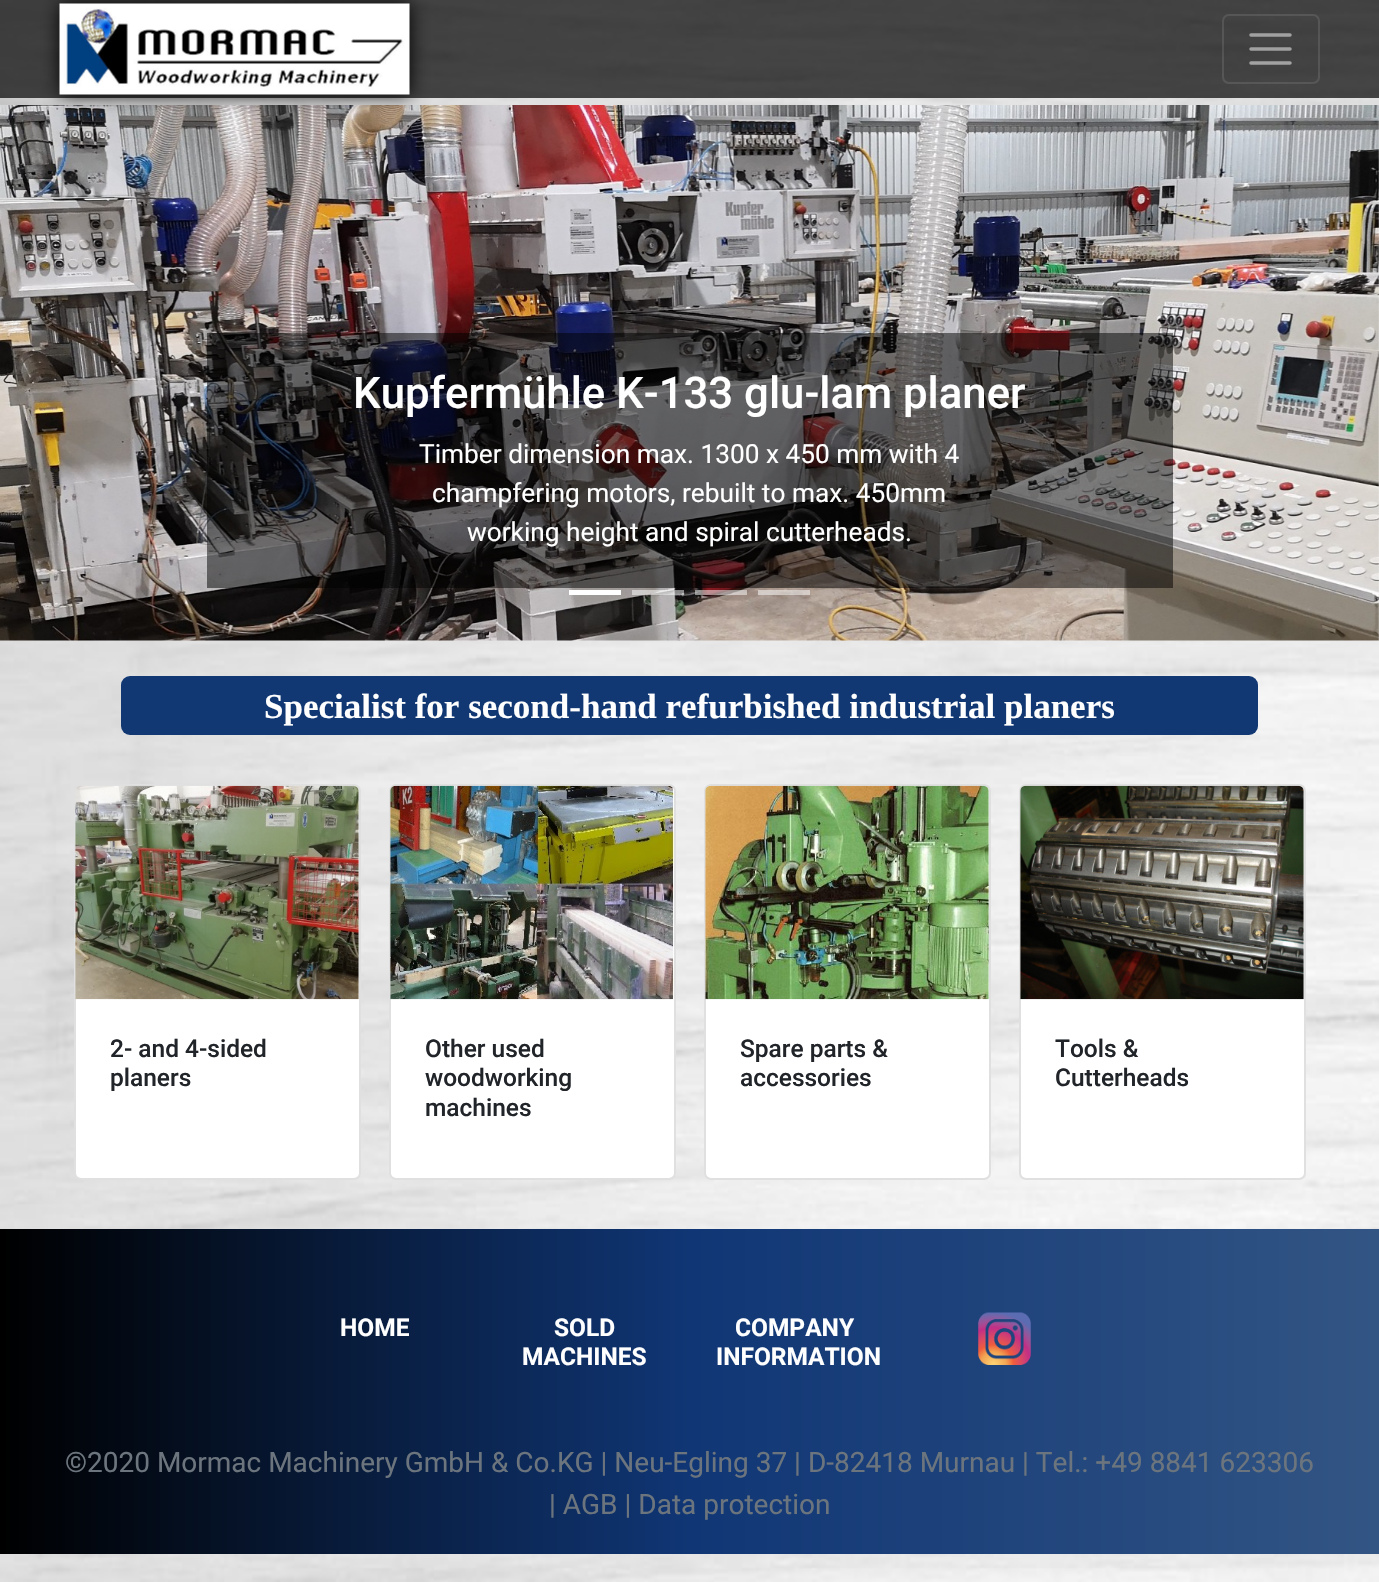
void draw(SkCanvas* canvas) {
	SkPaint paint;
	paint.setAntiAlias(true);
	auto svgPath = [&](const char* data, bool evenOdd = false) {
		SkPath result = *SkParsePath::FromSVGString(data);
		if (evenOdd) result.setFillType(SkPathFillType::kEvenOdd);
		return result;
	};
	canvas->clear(0xffffffff);
	canvas->drawImageRect(SkImages::DeferredFromEncodedData(SkData::MakeFromFileName("img1.png")), SkRect::MakeXYWH(0, 0, 1379, 1582), SkSamplingOptions());
	paint.setColor(0xb3000000);
	canvas->drawRect(SkRect::MakeXYWH(0, 0, 1379, 98), paint);
	canvas->drawImageRect(SkImages::DeferredFromEncodedData(SkData::MakeFromFileName("img3.png")), SkRect::MakeXYWH(0, 105, 1379, 536), SkSamplingOptions());
	paint.setColor(0xff000000);
	paint.setMaskFilter(SkMaskFilter::MakeBlur(kNormal_SkBlurStyle, 9));
	canvas->drawRect(SkRect::MakeXYWH(60, 4, 350, 91), paint);
	paint.setMaskFilter(nullptr);
	canvas->drawImageRect(SkImages::DeferredFromEncodedData(SkData::MakeFromFileName("img2.png")), SkRect::MakeXYWH(59, 3, 351, 92), SkSamplingOptions());
	paint.setStroke(true);
	paint.setStrokeWidth(2);
	paint.setColor(0x1affffff);
	canvas->drawRoundRect(SkRect::MakeXYWH(1223, 15, 96, 68), 6, 6, paint);
	paint.setStrokeWidth(3.5);
	paint.setStrokeCap(SkPaint::kRound_Cap);
	paint.setColor(0x80ffffff);
	canvas->drawPath(svgPath("M1251 35H1290M1251 49H1290M1251 63H1290"), paint);
	paint.setStroke(false);
	paint.setColor(0x80000000);
	canvas->drawRect(SkRect::MakeXYWH(207, 333, 966, 255), paint);
	SkFont f1(fontMgr->matchFamilyStyle("Roboto", SkFontStyle(500, SkFontStyle::kNormal_Width, SkFontStyle::kUpright_Slant)), 43.75);
	f1.setSubpixel(true);
	paint.setColor(0xffffffff);
	canvas->drawString("Kupfermühle K-133 glu-lam planer", 353, 408, f1, paint);
	SkFont f2(fontMgr->matchFamilyStyle("Roboto", SkFontStyle::Normal()), 26.25);
	f2.setSubpixel(true);
	canvas->drawString("Timber dimension max. 1300 x 450 mm with 4", 419, 463, f2, paint);
	canvas->drawString("champfering motors, rebuilt to max. 450mm", 432, 502, f2, paint);
	canvas->drawString("working height and spiral cutterheads.", 467, 541, f2, paint);
	canvas->drawRect(SkRect::MakeXYWH(569, 590, 52, 5), paint);
	paint.setColor(0x80ffffff);
	canvas->drawRect(SkRect::MakeXYWH(632, 590, 52, 5), paint);
	canvas->drawRect(SkRect::MakeXYWH(695, 590, 52, 5), paint);
	canvas->drawRect(SkRect::MakeXYWH(758, 590, 52, 5), paint);
	paint.setColor(0xff113873);
	canvas->drawRoundRect(SkRect::MakeXYWH(121, 676, 1137, 59), 9, 9, paint);
	SkFont f3(fontMgr->matchFamilyStyle("Liberation Serif", SkFontStyle::Bold()), 35);
	f3.setSubpixel(true);
	paint.setColor(0xffffffff);
	canvas->drawString("Specialist for second-hand refurbished industrial planers", 264, 718, f3, paint);
	canvas->drawRoundRect(SkRect::MakeXYWH(74, 784, 287, 396), 7, 7, paint);
	paint.setStroke(true);
	paint.setStrokeWidth(2);
	paint.setStrokeCap(SkPaint::kButt_Cap);
	paint.setColor(0x1f000000);
	canvas->drawRoundRect(SkRect::MakeXYWH(75, 785, 285, 394), 6, 6, paint);
	canvas->drawImageRect(SkImages::DeferredFromEncodedData(SkData::MakeFromFileName("img4.png")), SkRect::MakeXYWH(75, 785, 284, 215), SkSamplingOptions());
	SkFont f4(fontMgr->matchFamilyStyle("Roboto", SkFontStyle(500, SkFontStyle::kNormal_Width, SkFontStyle::kUpright_Slant)), 24.5);
	f4.setSubpixel(true);
	paint.setStroke(false);
	paint.setColor(0xff212529);
	canvas->drawString("2- and 4-sided", 110, 1057, f4, paint);
	canvas->drawString("planers", 110, 1086, f4, paint);
	paint.setColor(0xffffffff);
	canvas->drawRoundRect(SkRect::MakeXYWH(389, 784, 287, 396), 7, 7, paint);
	paint.setStroke(true);
	paint.setColor(0x1f000000);
	canvas->drawRoundRect(SkRect::MakeXYWH(390, 785, 285, 394), 6, 6, paint);
	canvas->drawImageRect(SkImages::DeferredFromEncodedData(SkData::MakeFromFileName("img5.png")), SkRect::MakeXYWH(390, 785, 284, 215), SkSamplingOptions());
	paint.setStroke(false);
	paint.setColor(0xff212529);
	canvas->drawString("Other used", 425, 1057, f4, paint);
	canvas->drawString("woodworking", 425, 1086, f4, paint);
	canvas->drawString("machines", 425, 1116, f4, paint);
	paint.setColor(0xffffffff);
	canvas->drawRoundRect(SkRect::MakeXYWH(704, 784, 287, 396), 7, 7, paint);
	paint.setStroke(true);
	paint.setColor(0x1f000000);
	canvas->drawRoundRect(SkRect::MakeXYWH(705, 785, 285, 394), 6, 6, paint);
	canvas->drawImageRect(SkImages::DeferredFromEncodedData(SkData::MakeFromFileName("img6.png")), SkRect::MakeXYWH(705, 785, 284, 215), SkSamplingOptions());
	paint.setStroke(false);
	paint.setColor(0xff212529);
	canvas->drawString("Spare parts &", 740, 1057, f4, paint);
	canvas->drawString("accessories", 740, 1086, f4, paint);
	paint.setColor(0xffffffff);
	canvas->drawRoundRect(SkRect::MakeXYWH(1019, 784, 287, 396), 7, 7, paint);
	paint.setStroke(true);
	paint.setColor(0x1f000000);
	canvas->drawRoundRect(SkRect::MakeXYWH(1020, 785, 285, 394), 6, 6, paint);
	canvas->drawImageRect(SkImages::DeferredFromEncodedData(SkData::MakeFromFileName("img7.png")), SkRect::MakeXYWH(1020, 785, 284, 215), SkSamplingOptions());
	paint.setStroke(false);
	paint.setColor(0xff212529);
	canvas->drawString("Tools &", 1055, 1057, f4, paint);
	canvas->drawString("Cutterheads", 1055, 1086, f4, paint);
	{
		const SkColor colors[] = {0xff000000, 0xff103675, 0xff325584};
		const float stops[] = {0, 0.5, 1};
		const SkPoint ends[] = {{0, 1391}, {1379, 1391}};
		paint.setShader(SkGradientShader::MakeLinear(ends, colors, stops, 3, SkTileMode::kClamp));
		paint.setAlpha(255);
	}
	canvas->drawRect(SkRect::MakeXYWH(0, 1229, 1379, 325), paint);
	SkFont f5(fontMgr->matchFamilyStyle("Roboto", SkFontStyle::Bold()), 24.5);
	f5.setSubpixel(true);
	paint.setShader(nullptr);
	paint.setColor(0xffffffff);
	canvas->drawString("HOME", 340, 1336, f5, paint);
	canvas->drawString("SOLD", 554, 1336, f5, paint);
	canvas->drawString("MACHINES", 522, 1365, f5, paint);
	canvas->drawString("COMPANY", 735, 1336, f5, paint);
	canvas->drawString("INFORMATION", 716, 1365, f5, paint);
	canvas->drawImageRect(SkImages::DeferredFromEncodedData(SkData::MakeFromFileName("img8.png")), SkRect::MakeXYWH(978, 1312, 53, 53), SkSamplingOptions());
	SkFont f6(fontMgr->matchFamilyStyle("Roboto", SkFontStyle::Normal()), 28);
	f6.setSubpixel(true);
	paint.setColor(0xff6c757d);
	canvas->drawString("©2020 Mormac Machinery GmbH & Co.KG | Neu-Egling 37 | D-82418 Murnau | Tel.: +49 8841 623306", 65, 1472, f6, paint);
	canvas->drawString("| AGB | Data protection", 549, 1514, f6, paint);
}
